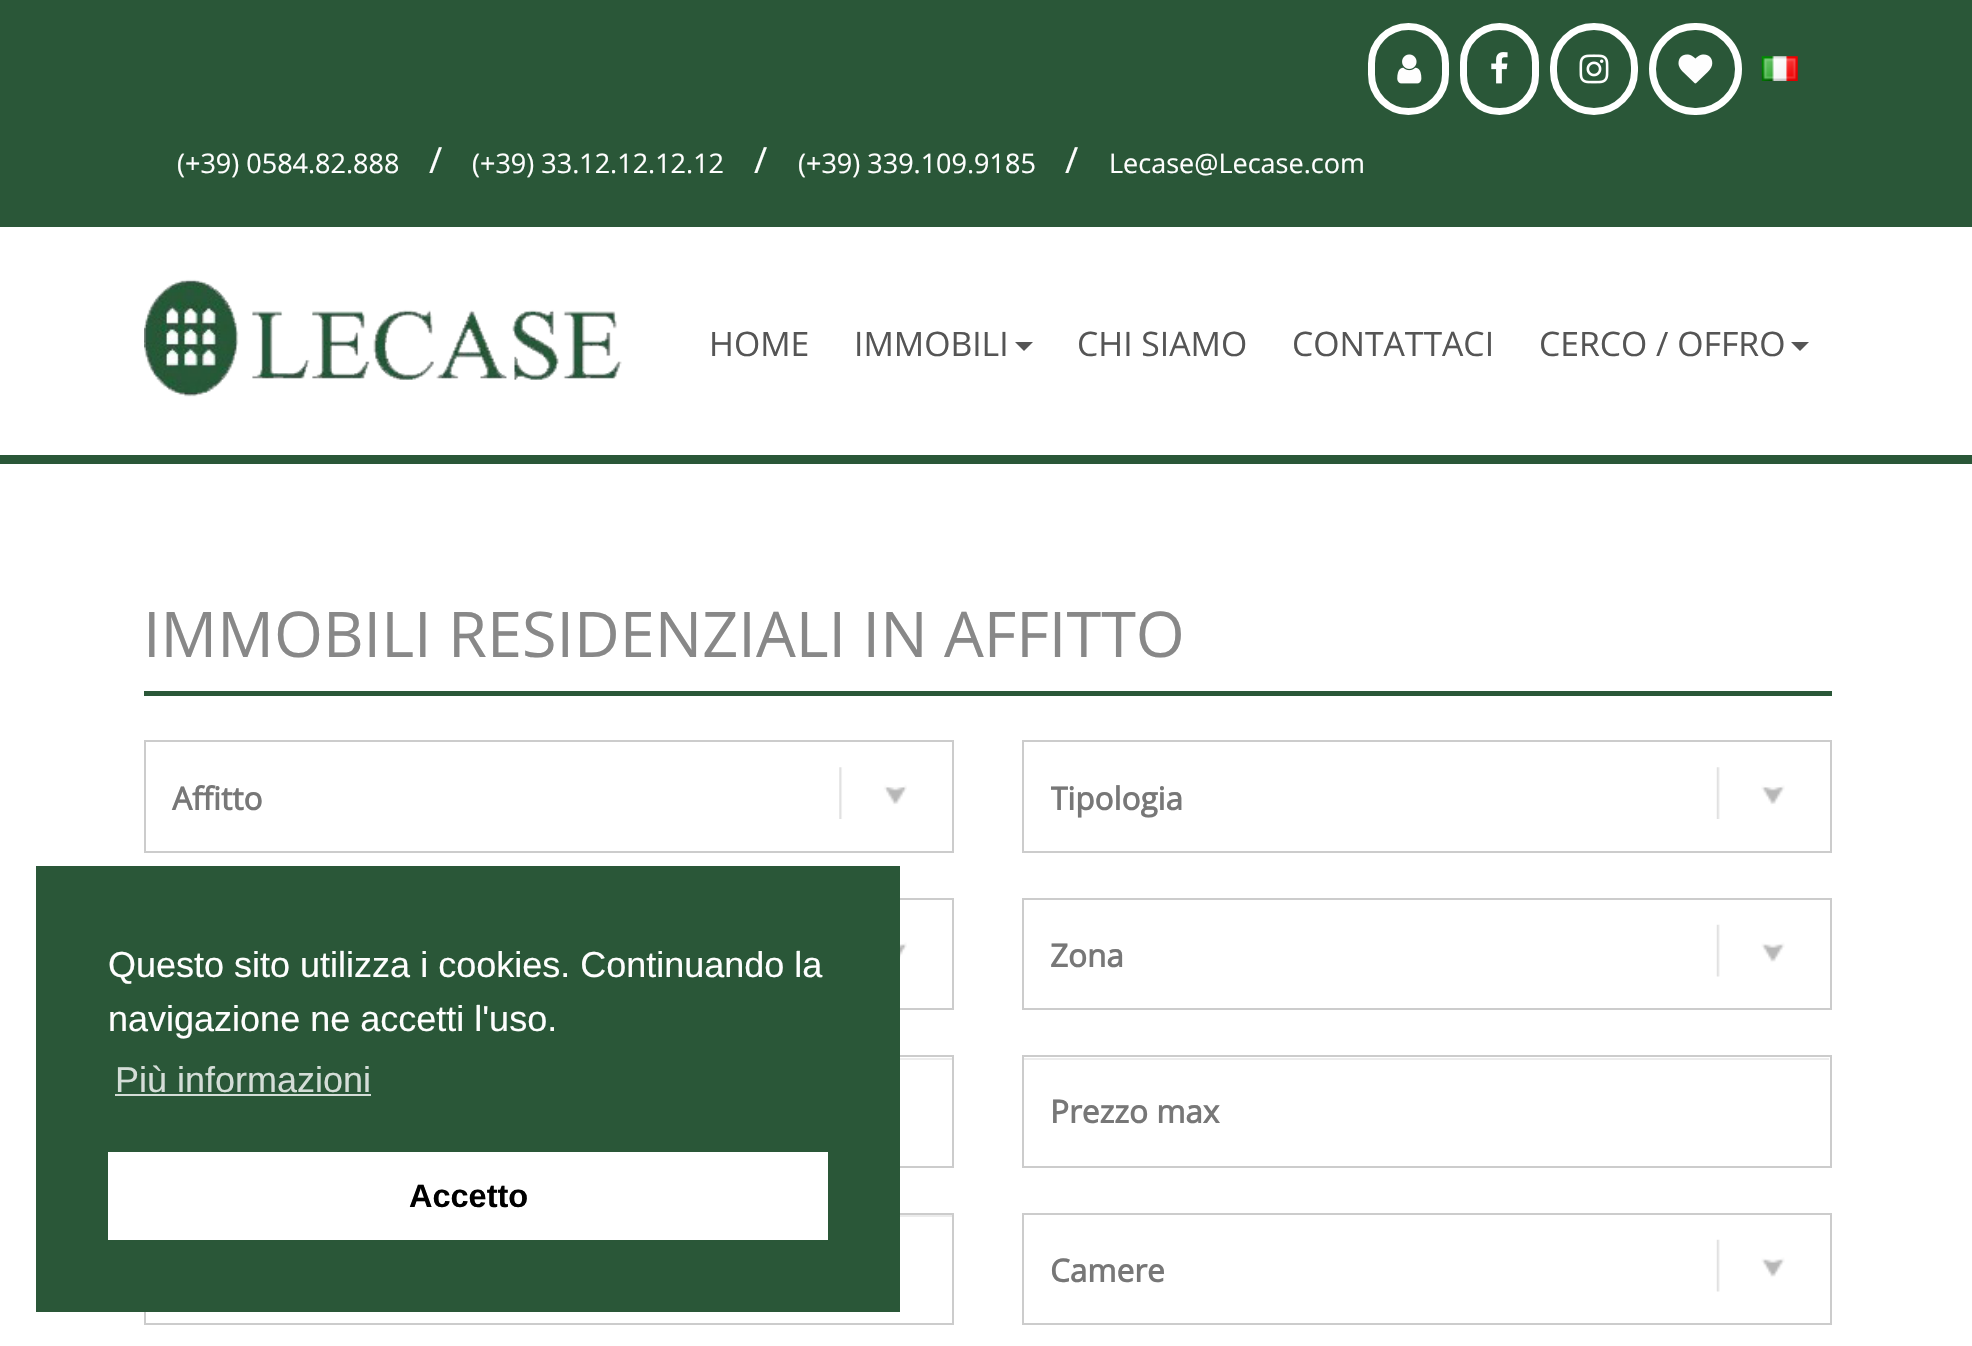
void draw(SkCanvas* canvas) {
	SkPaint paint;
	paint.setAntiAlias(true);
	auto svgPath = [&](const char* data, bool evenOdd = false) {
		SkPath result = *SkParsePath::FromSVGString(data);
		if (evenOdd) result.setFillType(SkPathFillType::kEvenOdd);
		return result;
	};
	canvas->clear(0xffffffff);
	paint.setColor(0xff2a5738);
	canvas->drawRect(SkRect::MakeXYWH(0, 0, 1972, 227), paint);
	paint.setStroke(true);
	paint.setStrokeWidth(7);
	paint.setColor(0xffffffff);
	canvas->drawRoundRect(SkRect::MakeXYWH(1371.5, 26.5, 74, 85), 37, 37, paint);
	canvas->drawImageRect(SkImages::DeferredFromEncodedData(SkData::MakeFromFileName("img1.png")), SkRect::MakeXYWH(1397, 54, 25, 30), SkSamplingOptions());
	canvas->drawRoundRect(SkRect::MakeXYWH(1463.5, 26.5, 72, 85), 36, 36, paint);
	canvas->drawImageRect(SkImages::DeferredFromEncodedData(SkData::MakeFromFileName("img2.png")), SkRect::MakeXYWH(1491, 52, 17, 32), SkSamplingOptions());
	canvas->drawRoundRect(SkRect::MakeXYWH(1553.5, 26.5, 81, 85), 40.5, 40.5, paint);
	canvas->drawImageRect(SkImages::DeferredFromEncodedData(SkData::MakeFromFileName("img3.png")), SkRect::MakeXYWH(1579, 54, 30, 30), SkSamplingOptions());
	canvas->drawRoundRect(SkRect::MakeXYWH(1652.5, 26.5, 86, 85), 42.5, 42.5, paint);
	canvas->drawImageRect(SkImages::DeferredFromEncodedData(SkData::MakeFromFileName("img4.png")), SkRect::MakeXYWH(1678, 54, 35, 30), SkSamplingOptions());
	canvas->drawImageRect(SkImages::DeferredFromEncodedData(SkData::MakeFromFileName("img5.png")), SkRect::MakeXYWH(1761, 56, 37, 25), SkSamplingOptions());
	SkFont f1(fontMgr->matchFamilyStyle("Open Sans", SkFontStyle::Normal()), 27);
	f1.setSubpixel(true);
	paint.setStroke(false);
	paint.setColor(0xfffefefe);
	canvas->drawString("(+39) 0584.82.888", 177, 173, f1, paint);
	SkFont f2(fontMgr->matchFamilyStyle("Open Sans", SkFontStyle::Normal()), 36);
	f2.setSubpixel(true);
	canvas->drawString("/", 429, 173, f2, paint);
	canvas->drawString("(+39) 33.12.12.12.12", 472, 173, f1, paint);
	canvas->drawString("/", 754, 173, f2, paint);
	canvas->drawString("(+39) 339.109.9185", 798, 173, f1, paint);
	canvas->drawString("/", 1065, 173, f2, paint);
	canvas->drawString("Lecase@Lecase.com", 1109, 173, f1, paint);
	paint.setColor(0xff2a5738);
	canvas->drawRect(SkRect::MakeXYWH(0, 455, 1972, 9), paint);
	canvas->drawImageRect(SkImages::DeferredFromEncodedData(SkData::MakeFromFileName("img6.png")), SkRect::MakeXYWH(144, 279, 478, 118), SkSamplingOptions());
	SkFont f3(fontMgr->matchFamilyStyle("Open Sans", SkFontStyle::Normal()), 33.75);
	f3.setSubpixel(true);
	paint.setColor(0xff555555);
	canvas->drawString("HOME", 709, 356, f3, paint);
	canvas->drawString("IMMOBILI", 854, 356, f3, paint);
	canvas->drawPath(svgPath("M1015 342H1033L1024 351Z"), paint);
	canvas->drawString("CHI SIAMO", 1077, 356, f3, paint);
	canvas->drawString("CONTATTACI", 1292, 356, f3, paint);
	canvas->drawString("CERCO / OFFRO", 1539, 356, f3, paint);
	canvas->drawPath(svgPath("M1791 342H1809L1800 351Z"), paint);
	paint.setColor(0xff2a5738);
	canvas->drawRect(SkRect::MakeXYWH(144, 691, 1688, 5), paint);
	SkFont f4(fontMgr->matchFamilyStyle("Open Sans", SkFontStyle::Normal()), 63);
	f4.setSubpixel(true);
	paint.setColor(0xff888888);
	canvas->drawString("IMMOBILI RESIDENZIALI IN AFFITTO", 143, 657, f4, paint);
	paint.setStroke(true);
	paint.setStrokeWidth(2);
	paint.setColor(0xffcccccc);
	canvas->drawRect(SkRect::MakeXYWH(145, 741, 808, 111), paint);
	SkFont f5(fontMgr->matchFamilyStyle("Open Sans", SkFontStyle::Bold()), 31.5);
	f5.setSubpixel(true);
	paint.setStroke(false);
	paint.setColor(0xff777777);
	canvas->drawString("Affitto", 172, 810, f5, paint);
	canvas->drawImageRect(SkImages::DeferredFromEncodedData(SkData::MakeFromFileName("img7.png")), SkRect::MakeXYWH(839, 767, 68, 52), SkSamplingOptions());
	paint.setStroke(true);
	paint.setColor(0xffcccccc);
	canvas->drawRect(SkRect::MakeXYWH(1023, 741, 808, 111), paint);
	canvas->save();
	canvas->clipRect(SkRect::MakeXYWH(1051, 756, 722, 86));
	paint.setStroke(false);
	paint.setColor(0xff777777);
	canvas->drawString("Tipologia", 1050, 810, f5, paint);
	canvas->restore();
	canvas->drawImageRect(SkImages::DeferredFromEncodedData(SkData::MakeFromFileName("img8.png")), SkRect::MakeXYWH(1716, 767, 69, 52), SkSamplingOptions());
	paint.setStroke(true);
	paint.setColor(0xffcccccc);
	canvas->drawRect(SkRect::MakeXYWH(145, 899, 808, 110), paint);
	canvas->drawImageRect(SkImages::DeferredFromEncodedData(SkData::MakeFromFileName("img9.png")), SkRect::MakeXYWH(900, 942, 7, 17), SkSamplingOptions());
	canvas->drawRect(SkRect::MakeXYWH(1023, 899, 808, 110), paint);
	paint.setStroke(false);
	paint.setColor(0xff777777);
	canvas->drawString("Zona", 1050, 967, f5, paint);
	canvas->drawImageRect(SkImages::DeferredFromEncodedData(SkData::MakeFromFileName("img10.png")), SkRect::MakeXYWH(1716, 924, 69, 53), SkSamplingOptions());
	paint.setColor(0xffececec);
	canvas->drawRect(SkRect::MakeXYWH(900, 1058, 52, 2), paint);
	paint.setStroke(true);
	paint.setColor(0xffcccccc);
	canvas->drawRect(SkRect::MakeXYWH(145, 1056, 808, 111), paint);
	paint.setStroke(false);
	paint.setColor(0xffececec);
	canvas->drawRect(SkRect::MakeXYWH(1024, 1058, 805, 2), paint);
	paint.setStroke(true);
	paint.setColor(0xffcccccc);
	canvas->drawRect(SkRect::MakeXYWH(1023, 1056, 808, 111), paint);
	paint.setStroke(false);
	paint.setColor(0xff777777);
	canvas->drawString("Prezzo max", 1050, 1123, f5, paint);
	paint.setColor(0xffececec);
	canvas->drawRect(SkRect::MakeXYWH(900, 1215, 52, 2), paint);
	paint.setStroke(true);
	paint.setColor(0xffcccccc);
	canvas->drawRect(SkRect::MakeXYWH(145, 1214, 808, 110), paint);
	canvas->drawRect(SkRect::MakeXYWH(1023, 1214, 808, 110), paint);
	paint.setStroke(false);
	paint.setColor(0xff777777);
	canvas->drawString("Camere", 1050, 1282, f5, paint);
	canvas->drawImageRect(SkImages::DeferredFromEncodedData(SkData::MakeFromFileName("img10.png")), SkRect::MakeXYWH(1716, 1239, 69, 53), SkSamplingOptions());
	paint.setColor(0xff2a5738);
	canvas->drawRect(SkRect::MakeXYWH(36, 866, 864, 446), paint);
	SkFont f6(fontMgr->matchFamilyStyle("Liberation Sans", SkFontStyle::Normal()), 36);
	f6.setSubpixel(true);
	paint.setColor(0xfffefefe);
	canvas->drawString("Questo sito utilizza i cookies. Continuando la", 108, 977, f6, paint);
	canvas->drawString("navigazione ne accetti l'uso.", 108, 1031, f6, paint);
	paint.setColor(0xffd4ddd7);
	canvas->drawString("Più informazioni", 115, 1092, f6, paint);
	canvas->drawRect(SkRect::MakeXYWH(115, 1094, 256, 2), paint);
	paint.setColor(0xffffffff);
	canvas->drawRect(SkRect::MakeXYWH(108, 1152, 720, 88), paint);
	SkFont f7(fontMgr->matchFamilyStyle("Liberation Sans", SkFontStyle::Bold()), 32.5);
	f7.setSubpixel(true);
	paint.setColor(0xff000000);
	canvas->drawString("Accetto", 409, 1207, f7, paint);
}
